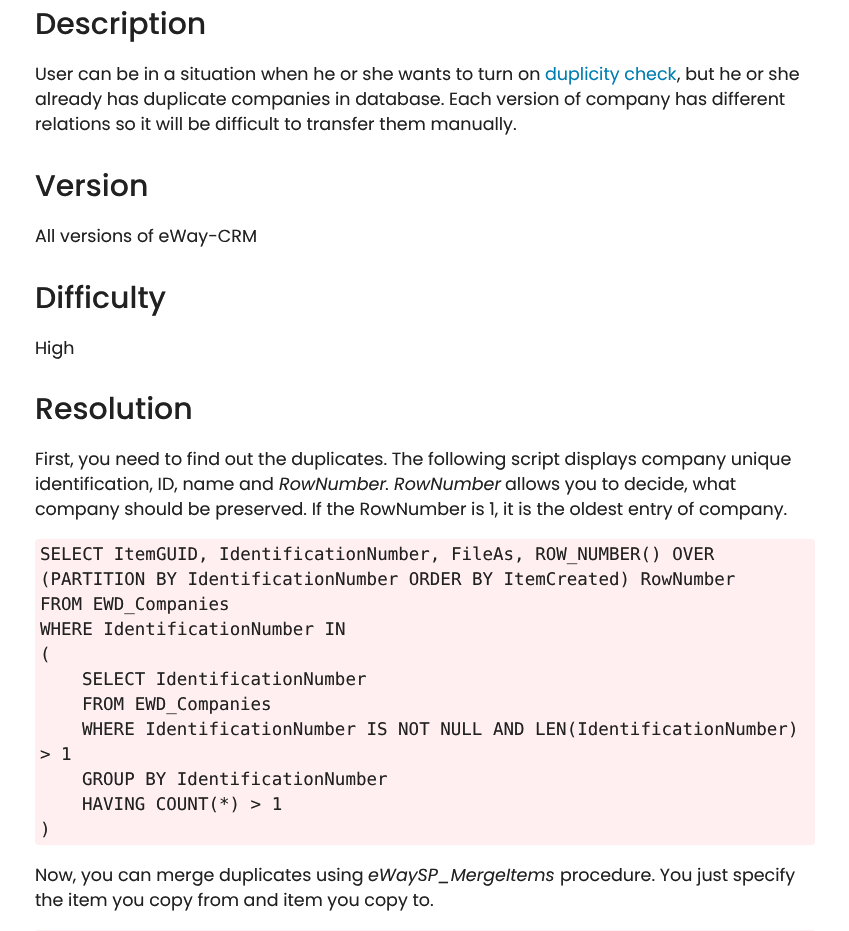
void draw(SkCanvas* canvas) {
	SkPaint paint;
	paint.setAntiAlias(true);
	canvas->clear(0xffffffff);
	SkFont f1(fontMgr->matchFamilyStyle("Poppins", SkFontStyle(500, SkFontStyle::kNormal_Width, SkFontStyle::kUpright_Slant)), 30);
	f1.setSubpixel(true);
	paint.setColor(0xff212121);
	canvas->drawString("Description", 35, 34, f1, paint);
	SkFont f2(fontMgr->matchFamilyStyle("Poppins", SkFontStyle::Normal()), 17.5);
	f2.setSubpixel(true);
	canvas->drawString("User can be in a situation when he or she wants to turn on", 35, 80, f2, paint);
	paint.setColor(0xff007eb1);
	canvas->drawString("duplicity check", 545, 80, f2, paint);
	paint.setColor(0xff212121);
	canvas->drawString(", but he or she", 677, 80, f2, paint);
	canvas->drawString("already has duplicate companies in database. Each version of company has different", 35, 105, f2, paint);
	canvas->drawString("relations so it will be difficult to transfer them manually.", 35, 130, f2, paint);
	canvas->drawString("Version", 35, 196, f1, paint);
	canvas->drawString("All versions of eWay-CRM", 35, 242, f2, paint);
	canvas->drawString("Difficulty", 35, 308, f1, paint);
	canvas->drawString("High", 35, 354, f2, paint);
	canvas->drawString("Resolution", 35, 419, f1, paint);
	canvas->drawString("First, you need to find out the duplicates. The following script displays company unique", 35, 465, f2, paint);
	canvas->drawString("identification, ID, name and", 35, 490, f2, paint);
	SkFont f3(fontMgr->matchFamilyStyle("Poppins", SkFontStyle::Italic()), 17.5);
	f3.setSubpixel(true);
	canvas->drawString("RowNumber", 279, 490, f3, paint);
	canvas->drawString(".", 385, 490, f2, paint);
	canvas->drawString("RowNumber", 394, 490, f3, paint);
	canvas->drawString("allows you to decide, what", 505, 490, f2, paint);
	canvas->drawString("company should be preserved. If the RowNumber is 1, it is the oldest entry of company.", 35, 515, f2, paint);
	paint.setColor(0xffffeff0);
	canvas->drawRoundRect(SkRect::MakeXYWH(35, 539, 780, 306), 4, 4, paint);
	SkFont f4(fontMgr->matchFamilyStyle("DejaVu Sans Mono", SkFontStyle::Normal()), 17.5);
	f4.setSubpixel(true);
	paint.setColor(0xff212121);
	canvas->drawString("SELECT ItemGUID, IdentificationNumber, FileAs, ROW_NUMBER() OVER", 40, 560, f4, paint);
	canvas->drawString("(PARTITION BY IdentificationNumber ORDER BY ItemCreated) RowNumber", 40, 585, f4, paint);
	canvas->drawString("FROM EWD_Companies", 40, 610, f4, paint);
	canvas->drawString("WHERE IdentificationNumber IN", 40, 635, f4, paint);
	canvas->drawString("(", 40, 660, f4, paint);
	canvas->drawString("SELECT IdentificationNumber", 82, 685, f4, paint);
	canvas->drawString("FROM EWD_Companies", 82, 710, f4, paint);
	canvas->drawString("WHERE IdentificationNumber IS NOT NULL AND LEN(IdentificationNumber)", 82, 735, f4, paint);
	canvas->drawString("> 1", 40, 760, f4, paint);
	canvas->drawString("GROUP BY IdentificationNumber", 82, 785, f4, paint);
	canvas->drawString("HAVING COUNT(*) > 1", 82, 810, f4, paint);
	canvas->drawString(")", 40, 835, f4, paint);
	canvas->drawString("Now, you can merge duplicates using", 35, 881, f2, paint);
	canvas->drawString("eWaySP_MergeItems", 368, 881, f3, paint);
	canvas->drawString("procedure. You just specify", 560, 881, f2, paint);
	canvas->drawString("the item you copy from and item you copy to.", 35, 906, f2, paint);
	paint.setColor(0xffffeff0);
	canvas->drawRoundRect(SkRect::MakeXYWH(35, 930, 780, 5), 4, 4, paint);
}
